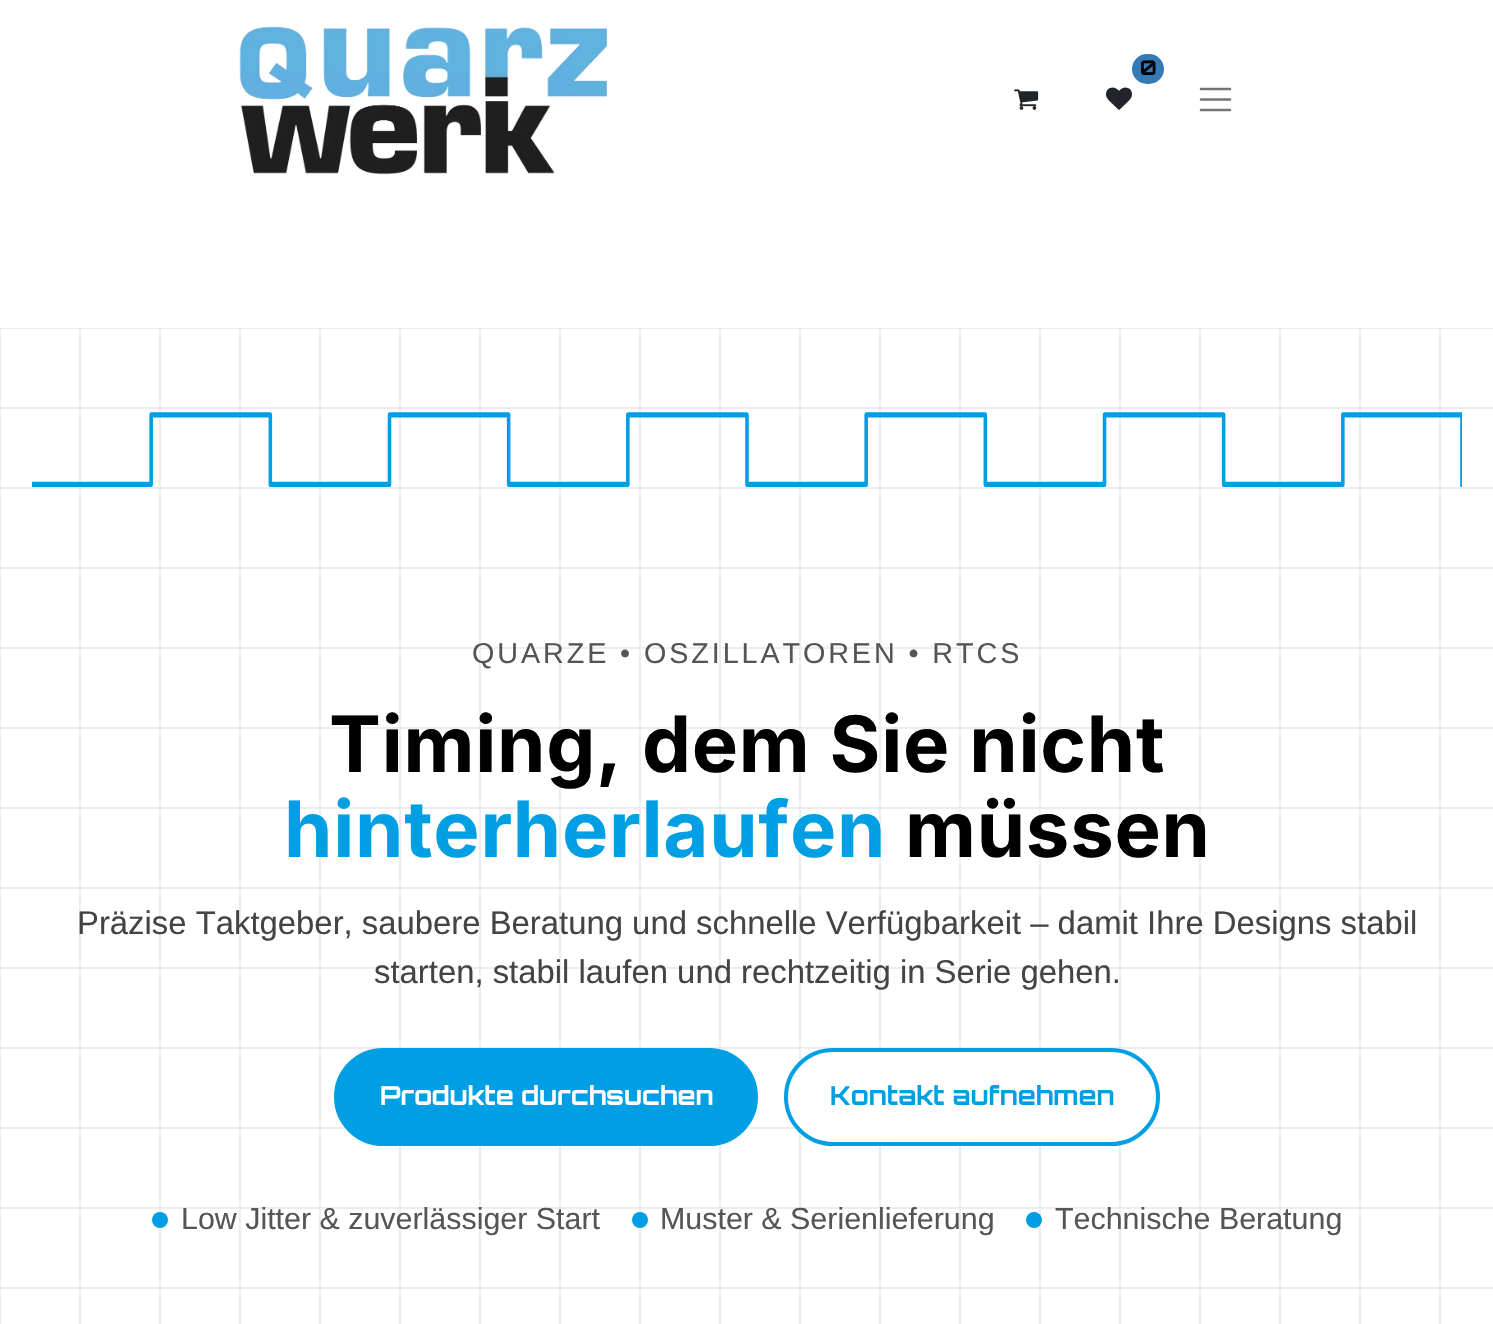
void draw(SkCanvas* canvas) {
	SkPaint paint;
	paint.setAntiAlias(true);
	auto spacedText = [&](const char* s, float x, float y, const SkFont& font, const SkPaint& ink, float letter, float word) {
		std::vector<SkGlyphID> glyphs(font.countText(s, strlen(s), SkTextEncoding::kUTF8));
		std::vector<float> xs(glyphs.size());
		font.textToGlyphs(s, strlen(s), SkTextEncoding::kUTF8, glyphs);
		font.getXPos(glyphs, xs, x);
		float extra = 0;
		for (size_t i = 0; i < glyphs.size(); i++) {
			xs[i] += extra;
			extra += letter + word * (glyphs[i] == font.unicharToGlyph(' '));
		}
		canvas->drawTextBlob(SkTextBlob::MakeFromPosHGlyphs(glyphs, xs, y, font), 0, 0, ink);
	};
	auto svgPath = [&](const char* data, bool evenOdd = false) {
		SkPath result = *SkParsePath::FromSVGString(data);
		if (evenOdd) result.setFillType(SkPathFillType::kEvenOdd);
		return result;
	};
	canvas->clear(0xffffffff);
	canvas->drawImageRect(SkImages::DeferredFromEncodedData(SkData::MakeFromFileName("img1.png")), SkRect::MakeXYWH(239, 26, 369, 149), SkSamplingOptions());
	paint.setColor(0xff337ab7);
	canvas->drawRoundRect(SkRect::MakeXYWH(1132, 54, 32, 30), 15, 15, paint);
	SkFont f1(fontMgr->matchFamilyStyle("Orbitron", SkFontStyle::Bold()), 20);
	f1.setSubpixel(true);
	paint.setColor(0xff000000);
	canvas->drawString("0", 1140, 75, f1, paint);
	canvas->drawImageRect(SkImages::DeferredFromEncodedData(SkData::MakeFromFileName("img2.png")), SkRect::MakeXYWH(1106, 87, 26, 23), SkSamplingOptions());
	canvas->drawImageRect(SkImages::DeferredFromEncodedData(SkData::MakeFromFileName("img3.png")), SkRect::MakeXYWH(1014, 89, 25, 21), SkSamplingOptions());
	paint.setStroke(true);
	paint.setStrokeWidth(2.6);
	paint.setStrokeCap(SkPaint::kRound_Cap);
	paint.setColor(0xff737373);
	canvas->drawPath(svgPath("M1201 89H1230M1201 99.5H1230M1201 110H1230"), paint);
	canvas->drawImageRect(SkImages::DeferredFromEncodedData(SkData::MakeFromFileName("img4.png")), SkRect::MakeXYWH(0, 328, 1493, 996), SkSamplingOptions());
	canvas->drawImageRect(SkImages::DeferredFromEncodedData(SkData::MakeFromFileName("img5.png")), SkRect::MakeXYWH(32, 412, 1430, 75), SkSamplingOptions());
	SkFont f2(fontMgr->matchFamilyStyle("Liberation Sans", SkFontStyle::Normal()), 28.75);
	f2.setSubpixel(true);
	paint.setStroke(false);
	paint.setColor(0xff555555);
	spacedText("QUARZE • OSZILLATOREN • RTCS", 472, 663, f2, paint, 2.9, 0);
	SkFont f3(fontMgr->matchFamilyStyle("Inter", SkFontStyle::Bold()), 77.75);
	f3.setSubpixel(true);
	paint.setColor(0xff000000);
	spacedText("Timing, dem Sie nicht", 329, 772, f3, paint, 0.75, 0);
	paint.setColor(0xff009fe3);
	spacedText("hinterherlaufen", 284, 857, f3, paint, 0.75, 0);
	paint.setColor(0xff000000);
	spacedText("müssen", 905, 857, f3, paint, 0.75, 0);
	SkFont f4(fontMgr->matchFamilyStyle("Liberation Sans", SkFontStyle::Normal()), 32.85);
	f4.setSubpixel(true);
	paint.setColor(0xff444444);
	canvas->drawString("Präzise Taktgeber, saubere Beratung und schnelle Verfügbarkeit – damit Ihre Designs stabil", 77, 934, f4, paint);
	canvas->drawString("starten, stabil laufen und rechtzeitig in Serie gehen.", 374, 983, f4, paint);
	paint.setColor(0xff009fe3);
	canvas->drawRoundRect(SkRect::MakeXYWH(336, 1050, 420, 94), 47, 47, paint);
	paint.setStroke(true);
	paint.setStrokeWidth(4);
	paint.setStrokeCap(SkPaint::kButt_Cap);
	canvas->drawRoundRect(SkRect::MakeXYWH(336, 1050, 420, 94), 47, 47, paint);
	SkFont f5(fontMgr->matchFamilyStyle("Orbitron", SkFontStyle::Bold()), 26);
	f5.setSubpixel(true);
	paint.setStroke(false);
	paint.setColor(0xffffffff);
	canvas->drawString("Produkte durchsuchen", 380, 1105, f5, paint);
	canvas->drawRoundRect(SkRect::MakeXYWH(786, 1050, 372, 94), 47, 47, paint);
	paint.setStroke(true);
	paint.setColor(0xff009fe3);
	canvas->drawRoundRect(SkRect::MakeXYWH(786, 1050, 372, 94), 47, 47, paint);
	paint.setStroke(false);
	canvas->drawString("Kontakt aufnehmen", 830, 1105, f5, paint);
	canvas->drawCircle(160, 1220, 8, paint);
	SkFont f6(fontMgr->matchFamilyStyle("Liberation Sans", SkFontStyle::Normal()), 30.4);
	f6.setSubpixel(true);
	paint.setColor(0xff555555);
	canvas->drawString("Low Jitter & zuverlässiger Start", 181, 1229, f6, paint);
	paint.setColor(0xff009fe3);
	canvas->drawCircle(640, 1220, 8, paint);
	paint.setColor(0xff555555);
	canvas->drawString("Muster & Serienlieferung", 660, 1229, f6, paint);
	paint.setColor(0xff009fe3);
	canvas->drawCircle(1034, 1220, 8, paint);
	paint.setColor(0xff555555);
	canvas->drawString("Technische Beratung", 1055, 1229, f6, paint);
}
